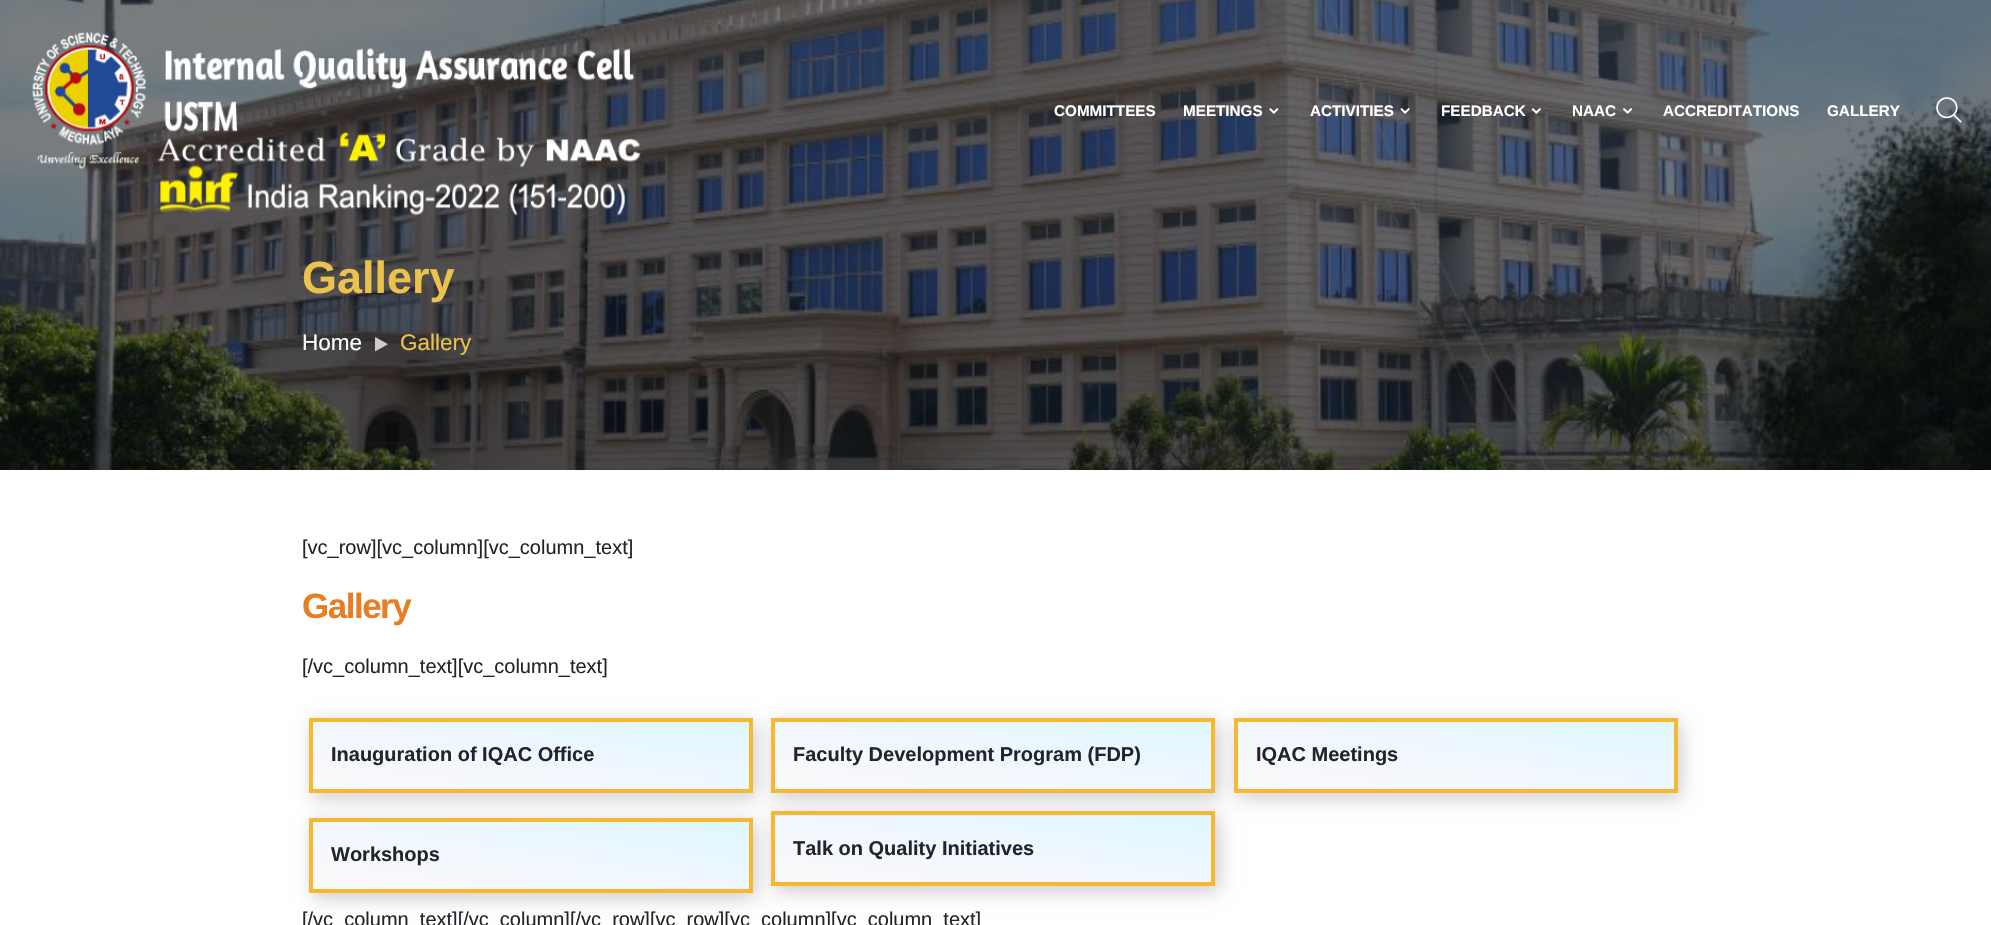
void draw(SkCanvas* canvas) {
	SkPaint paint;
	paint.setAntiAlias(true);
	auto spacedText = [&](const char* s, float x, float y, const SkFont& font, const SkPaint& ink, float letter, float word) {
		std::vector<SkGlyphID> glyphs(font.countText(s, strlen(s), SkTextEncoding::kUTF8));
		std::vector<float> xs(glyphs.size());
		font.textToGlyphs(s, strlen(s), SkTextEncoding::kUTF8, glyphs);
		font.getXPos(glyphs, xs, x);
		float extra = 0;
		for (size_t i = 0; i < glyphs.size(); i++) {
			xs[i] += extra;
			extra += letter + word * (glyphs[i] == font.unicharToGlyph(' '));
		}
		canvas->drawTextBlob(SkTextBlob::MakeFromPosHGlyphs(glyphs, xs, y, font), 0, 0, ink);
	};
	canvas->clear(0xffffffff);
	canvas->drawImageRect(SkImages::DeferredFromEncodedData(SkData::MakeFromFileName("img7.png")), SkRect::MakeXYWH(0, 0, 1991, 470), SkSamplingOptions());
	canvas->drawImageRect(SkImages::DeferredFromEncodedData(SkData::MakeFromFileName("img1.png")), SkRect::MakeXYWH(32, 32, 609, 184), SkSamplingOptions());
	SkFont f1(fontMgr->matchFamilyStyle("Liberation Sans", SkFontStyle::Bold()), 15.25);
	f1.setSubpixel(true);
	paint.setColor(0xffffffff);
	canvas->drawString("COMMITTEES", 1054, 116, f1, paint);
	canvas->drawString("MEETINGS", 1183, 116, f1, paint);
	canvas->drawImageRect(SkImages::DeferredFromEncodedData(SkData::MakeFromFileName("img2.png")), SkRect::MakeXYWH(1269, 108, 10, 6), SkSamplingOptions());
	canvas->drawString("ACTIVITIES", 1310, 116, f1, paint);
	canvas->drawImageRect(SkImages::DeferredFromEncodedData(SkData::MakeFromFileName("img3.png")), SkRect::MakeXYWH(1400, 108, 10, 6), SkSamplingOptions());
	canvas->drawString("FEEDBACK", 1441, 116, f1, paint);
	canvas->drawImageRect(SkImages::DeferredFromEncodedData(SkData::MakeFromFileName("img4.png")), SkRect::MakeXYWH(1531, 108, 10, 6), SkSamplingOptions());
	canvas->drawString("NAAC", 1572, 116, f1, paint);
	canvas->drawImageRect(SkImages::DeferredFromEncodedData(SkData::MakeFromFileName("img5.png")), SkRect::MakeXYWH(1623, 108, 10, 6), SkSamplingOptions());
	canvas->drawString("ACCREDITATIONS", 1663, 116, f1, paint);
	canvas->drawString("GALLERY", 1827, 116, f1, paint);
	canvas->drawImageRect(SkImages::DeferredFromEncodedData(SkData::MakeFromFileName("img6.png")), SkRect::MakeXYWH(1936, 97, 26, 26), SkSamplingOptions());
	SkFont f2(fontMgr->matchFamilyStyle("Liberation Sans", SkFontStyle::Bold()), 45);
	f2.setSubpixel(true);
	paint.setColor(0xffebc24d);
	canvas->drawString("Gallery", 302, 293, f2, paint);
	SkFont f3(fontMgr->matchFamilyStyle("Liberation Sans", SkFontStyle::Normal()), 22.5);
	f3.setSubpixel(true);
	paint.setColor(0xffffffff);
	canvas->drawString("Home", 302, 350, f3, paint);
	canvas->drawImageRect(SkImages::DeferredFromEncodedData(SkData::MakeFromFileName("img8.png")), SkRect::MakeXYWH(375, 337, 13, 15), SkSamplingOptions());
	paint.setColor(0xffebc24d);
	canvas->drawString("Gallery", 400, 350, f3, paint);
	SkFont f4(fontMgr->matchFamilyStyle("Liberation Sans", SkFontStyle::Normal()), 20);
	f4.setSubpixel(true);
	paint.setColor(0xff212529);
	canvas->drawString("[vc_row][vc_column][vc_column_text]", 302, 554, f4, paint);
	SkFont f5(fontMgr->matchFamilyStyle("Liberation Sans", SkFontStyle::Bold()), 35);
	f5.setSubpixel(true);
	paint.setColor(0xffe67e22);
	spacedText("Gallery", 302, 618, f5, paint, -1.5, 0);
	paint.setColor(0xff212529);
	canvas->drawString("[/vc_column_text][vc_column_text]", 302, 673, f4, paint);
	paint.setColor(0xffcccccc);
	paint.setMaskFilter(SkMaskFilter::MakeBlur(kNormal_SkBlurStyle, 9));
	canvas->drawRect(SkRect::MakeXYWH(313, 723, 443, 75), paint);
	paint.setMaskFilter(nullptr);
	{
		const SkColor colors[] = {0xfffafafa, 0xfff7f8fc, 0xfff0f7ff, 0xffe7f7ff, 0xffddf7fd};
		const float stops[] = {0, 0.25, 0.5, 0.75, 1};
		const SkPoint ends[] = {{520, 821}, {541, 689}};
		paint.setShader(SkGradientShader::MakeLinear(ends, colors, stops, 5, SkTileMode::kClamp));
		paint.setAlpha(255);
	}
	canvas->drawRect(SkRect::MakeXYWH(313, 722, 436, 67), paint);
	paint.setStroke(true);
	paint.setStrokeWidth(4);
	paint.setShader(nullptr);
	paint.setColor(0xfff7b733);
	canvas->drawRect(SkRect::MakeXYWH(311, 720, 440, 71), paint);
	SkFont f6(fontMgr->matchFamilyStyle("Liberation Sans", SkFontStyle::Bold()), 20);
	f6.setSubpixel(true);
	paint.setStroke(false);
	paint.setColor(0xff212529);
	canvas->drawString("Inauguration of IQAC Office", 331, 761, f6, paint);
	paint.setColor(0xffcccccc);
	paint.setMaskFilter(SkMaskFilter::MakeBlur(kNormal_SkBlurStyle, 9));
	canvas->drawRect(SkRect::MakeXYWH(775, 723, 444, 75), paint);
	paint.setMaskFilter(nullptr);
	{
		const SkColor colors[] = {0xfffafafa, 0xfff7f8fc, 0xfff0f7ff, 0xffe7f7ff, 0xffddf7fd};
		const float stops[] = {0, 0.25, 0.5, 0.75, 1};
		const SkPoint ends[] = {{983, 821}, {1003, 689}};
		paint.setShader(SkGradientShader::MakeLinear(ends, colors, stops, 5, SkTileMode::kClamp));
		paint.setAlpha(255);
	}
	canvas->drawRect(SkRect::MakeXYWH(775, 722, 436, 67), paint);
	paint.setStroke(true);
	paint.setShader(nullptr);
	paint.setColor(0xfff7b733);
	canvas->drawRect(SkRect::MakeXYWH(773, 720, 440, 71), paint);
	paint.setStroke(false);
	paint.setColor(0xff212529);
	canvas->drawString("Faculty Development Program (FDP)", 793, 761, f6, paint);
	paint.setColor(0xffcccccc);
	paint.setMaskFilter(SkMaskFilter::MakeBlur(kNormal_SkBlurStyle, 9));
	canvas->drawRect(SkRect::MakeXYWH(1238, 723, 443, 75), paint);
	paint.setMaskFilter(nullptr);
	{
		const SkColor colors[] = {0xfffafafa, 0xfff7f8fc, 0xfff0f7ff, 0xffe7f7ff, 0xffddf7fd};
		const float stops[] = {0, 0.25, 0.5, 0.75, 1};
		const SkPoint ends[] = {{1445, 821}, {1466, 689}};
		paint.setShader(SkGradientShader::MakeLinear(ends, colors, stops, 5, SkTileMode::kClamp));
		paint.setAlpha(255);
	}
	canvas->drawRect(SkRect::MakeXYWH(1238, 722, 436, 67), paint);
	paint.setStroke(true);
	paint.setShader(nullptr);
	paint.setColor(0xfff7b733);
	canvas->drawRect(SkRect::MakeXYWH(1236, 720, 440, 71), paint);
	paint.setStroke(false);
	paint.setColor(0xff212529);
	canvas->drawString("IQAC Meetings", 1256, 761, f6, paint);
	paint.setColor(0xffcccccc);
	paint.setMaskFilter(SkMaskFilter::MakeBlur(kNormal_SkBlurStyle, 9));
	canvas->drawRect(SkRect::MakeXYWH(313, 823, 443, 75), paint);
	paint.setMaskFilter(nullptr);
	{
		const SkColor colors[] = {0xfffafafa, 0xfff7f8fc, 0xfff0f7ff, 0xffe7f7ff, 0xffddf7fd};
		const float stops[] = {0, 0.25, 0.5, 0.75, 1};
		const SkPoint ends[] = {{520, 921}, {541, 789}};
		paint.setShader(SkGradientShader::MakeLinear(ends, colors, stops, 5, SkTileMode::kClamp));
		paint.setAlpha(255);
	}
	canvas->drawRect(SkRect::MakeXYWH(313, 822, 436, 67), paint);
	paint.setStroke(true);
	paint.setShader(nullptr);
	paint.setColor(0xfff7b733);
	canvas->drawRect(SkRect::MakeXYWH(311, 820, 440, 71), paint);
	paint.setStroke(false);
	paint.setColor(0xff212529);
	canvas->drawString("Workshops", 331, 861, f6, paint);
	paint.setColor(0xffcccccc);
	paint.setMaskFilter(SkMaskFilter::MakeBlur(kNormal_SkBlurStyle, 9));
	canvas->drawRect(SkRect::MakeXYWH(775, 816, 444, 75), paint);
	paint.setMaskFilter(nullptr);
	{
		const SkColor colors[] = {0xfffafafa, 0xfff7f8fc, 0xfff0f7ff, 0xffe7f7ff, 0xffddf7fd};
		const float stops[] = {0, 0.25, 0.5, 0.75, 1};
		const SkPoint ends[] = {{983, 915}, {1003, 783}};
		paint.setShader(SkGradientShader::MakeLinear(ends, colors, stops, 5, SkTileMode::kClamp));
		paint.setAlpha(255);
	}
	canvas->drawRect(SkRect::MakeXYWH(775, 815, 436, 67), paint);
	paint.setStroke(true);
	paint.setShader(nullptr);
	paint.setColor(0xfff7b733);
	canvas->drawRect(SkRect::MakeXYWH(773, 813, 440, 71), paint);
	paint.setStroke(false);
	paint.setColor(0xff212529);
	canvas->drawString("Talk on Quality Initiatives", 793, 855, f6, paint);
	canvas->drawString("[/vc_column_text][/vc_column][/vc_row][vc_row][vc_column][vc_column_text]", 302, 926, f4, paint);
}
